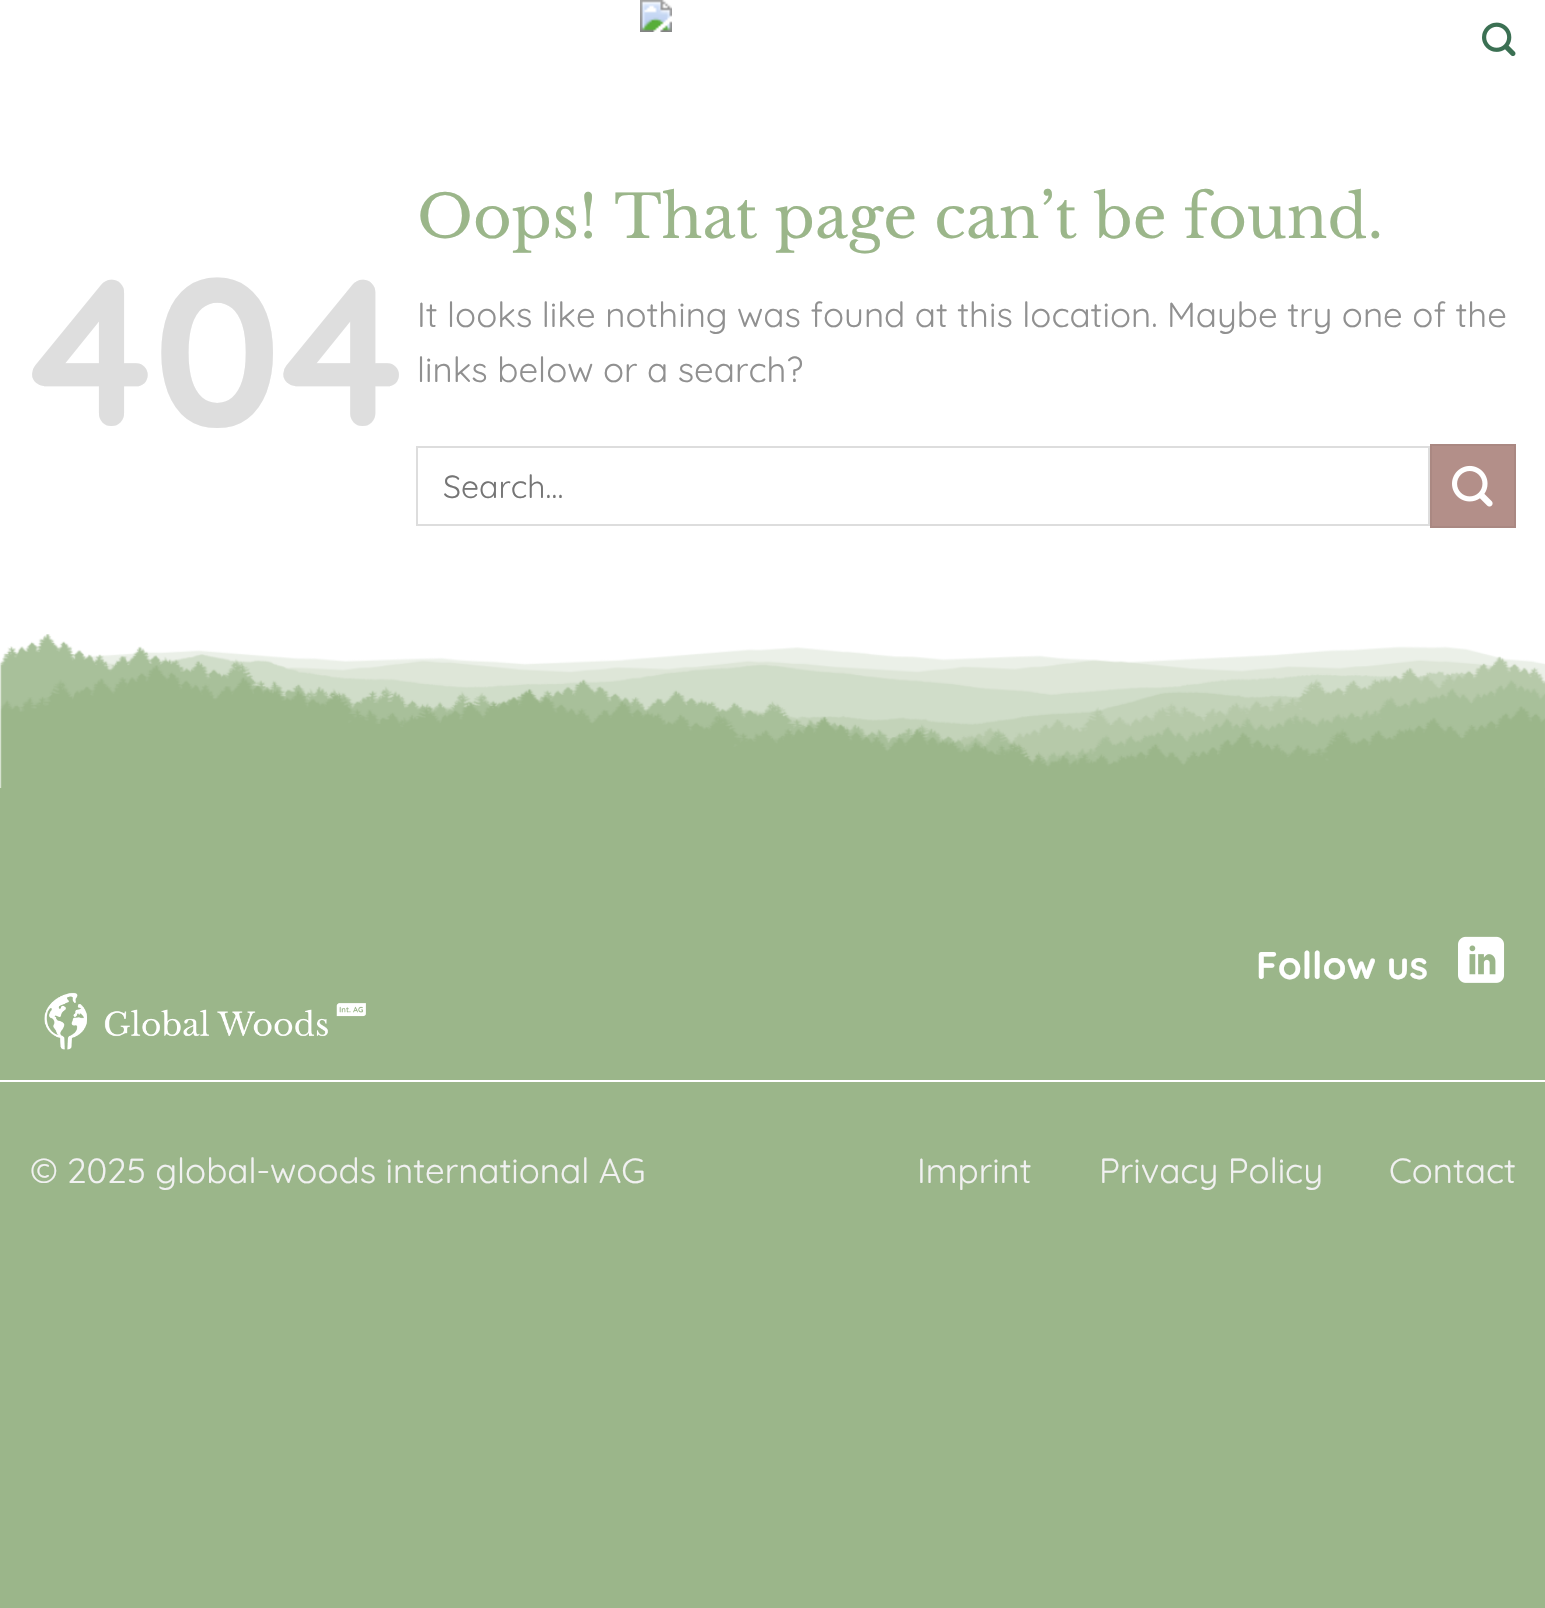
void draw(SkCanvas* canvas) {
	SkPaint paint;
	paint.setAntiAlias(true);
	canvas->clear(0xff9bb68a);
	paint.setColor(0xffffffff);
	canvas->drawRect(SkRect::MakeXYWH(0, 0, 1545, 788), paint);
	canvas->drawImageRect(SkImages::DeferredFromEncodedData(SkData::MakeFromFileName("img1.png")), SkRect::MakeXYWH(640, 0, 32, 32), SkSamplingOptions());
	canvas->drawImageRect(SkImages::DeferredFromEncodedData(SkData::MakeFromFileName("img2.png")), SkRect::MakeXYWH(1482, 22, 34, 35), SkSamplingOptions());
	SkFont f1(fontMgr->matchFamilyStyle("Quicksand", SkFontStyle::Bold()), 209);
	f1.setSubpixel(true);
	paint.setColor(0xffdedede);
	canvas->drawString("404", 30, 426, f1, paint);
	SkFont f2(fontMgr->matchFamilyStyle("Libre Baskerville", SkFontStyle::Normal()), 59.25);
	f2.setSubpixel(true);
	paint.setColor(0xff9bb68a);
	canvas->drawString("Oops! That page can’t be found.", 417, 238, f2, paint);
	SkFont f3(fontMgr->matchFamilyStyle("Quicksand", SkFontStyle::Normal()), 34.9);
	f3.setSubpixel(true);
	paint.setColor(0xff909090);
	canvas->drawString("It looks like nothing was found at this location. Maybe try one of the", 417, 327, f3, paint);
	canvas->drawString("links below or a search?", 417, 382, f3, paint);
	paint.setStroke(true);
	paint.setStrokeWidth(2);
	paint.setColor(0xffdddddd);
	canvas->drawRect(SkRect::MakeXYWH(417, 447, 1012, 78), paint);
	SkFont f4(fontMgr->matchFamilyStyle("Quicksand", SkFontStyle::Normal()), 32);
	f4.setSubpixel(true);
	paint.setStroke(false);
	paint.setColor(0xff757575);
	canvas->drawString("Search…", 443, 498, f4, paint);
	paint.setColor(0xffb38f89);
	canvas->drawRect(SkRect::MakeXYWH(1431, 445, 84, 82), paint);
	paint.setStroke(true);
	paint.setColor(0xffaa8882);
	canvas->drawRect(SkRect::MakeXYWH(1431, 445, 84, 82), paint);
	canvas->drawImageRect(SkImages::DeferredFromEncodedData(SkData::MakeFromFileName("img3.png")), SkRect::MakeXYWH(1452, 465, 41, 42), SkSamplingOptions());
	canvas->drawImageRect(SkImages::DeferredFromEncodedData(SkData::MakeFromFileName("img4.png")), SkRect::MakeXYWH(0, 634, 1545, 154), SkSamplingOptions());
	SkFont f5(fontMgr->matchFamilyStyle("Quicksand", SkFontStyle::Bold()), 38.5);
	f5.setSubpixel(true);
	paint.setStroke(false);
	paint.setColor(0xffffffff);
	canvas->drawString("Follow us", 1256, 979, f5, paint);
	canvas->drawImageRect(SkImages::DeferredFromEncodedData(SkData::MakeFromFileName("img5.png")), SkRect::MakeXYWH(1458, 936, 47, 47), SkSamplingOptions());
	canvas->drawImageRect(SkImages::DeferredFromEncodedData(SkData::MakeFromFileName("img6.png")), SkRect::MakeXYWH(44, 992, 322, 58), SkSamplingOptions());
	canvas->drawRect(SkRect::MakeXYWH(0, 1080, 1545, 2), paint);
	paint.setColor(0xfff1f1f1);
	canvas->drawString("© 2025 global-woods international AG", 30, 1183, f3, paint);
	canvas->drawString("Imprint", 917, 1183, f3, paint);
	canvas->drawString("Privacy Policy", 1099, 1183, f3, paint);
	canvas->drawString("Contact", 1389, 1183, f3, paint);
}
